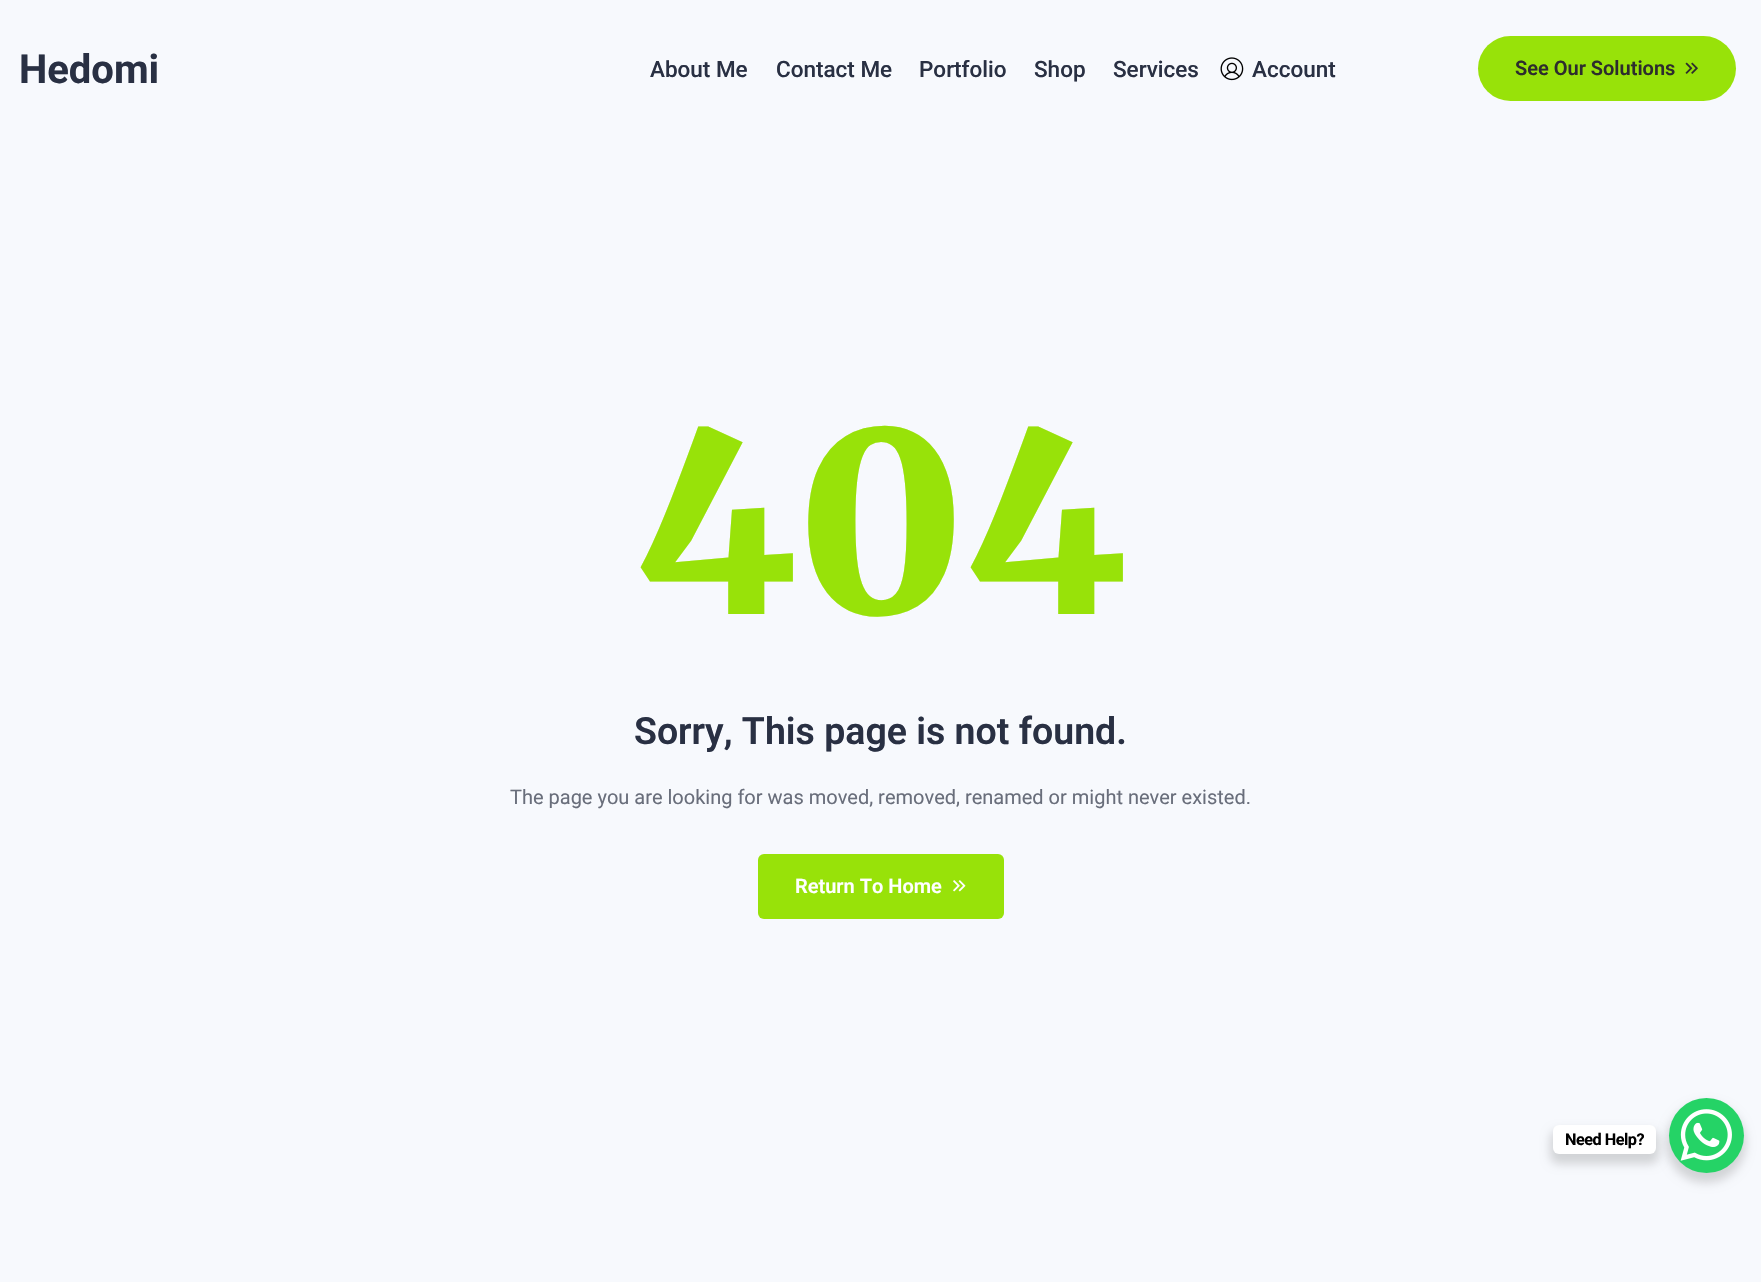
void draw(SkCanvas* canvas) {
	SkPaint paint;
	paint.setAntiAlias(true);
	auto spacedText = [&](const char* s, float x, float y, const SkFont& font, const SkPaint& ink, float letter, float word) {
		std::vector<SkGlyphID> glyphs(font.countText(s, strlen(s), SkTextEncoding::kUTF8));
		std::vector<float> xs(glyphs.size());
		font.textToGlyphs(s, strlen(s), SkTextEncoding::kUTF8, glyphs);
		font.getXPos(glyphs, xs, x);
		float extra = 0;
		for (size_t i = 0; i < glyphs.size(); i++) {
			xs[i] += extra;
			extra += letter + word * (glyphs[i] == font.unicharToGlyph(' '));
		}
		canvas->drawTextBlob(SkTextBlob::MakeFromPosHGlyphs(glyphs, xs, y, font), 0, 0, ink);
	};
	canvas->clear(0xfff7f9fd);
	SkFont f1(fontMgr->matchFamilyStyle("Roboto", SkFontStyle::Bold()), 40);
	f1.setSubpixel(true);
	paint.setColor(0xff293043);
	canvas->drawString("Hedomi", 19, 83, f1, paint);
	SkFont f2(fontMgr->matchFamilyStyle("Roboto", SkFontStyle(500, SkFontStyle::kNormal_Width, SkFontStyle::kUpright_Slant)), 22.5);
	f2.setSubpixel(true);
	canvas->drawString("About Me", 650, 77, f2, paint);
	canvas->drawString("Contact Me", 776, 77, f2, paint);
	canvas->drawString("Portfolio", 919, 77, f2, paint);
	canvas->drawString("Shop", 1034, 77, f2, paint);
	canvas->drawString("Services", 1113, 77, f2, paint);
	canvas->drawImageRect(SkImages::DeferredFromEncodedData(SkData::MakeFromFileName("img1.png")), SkRect::MakeXYWH(1220, 57, 24, 24), SkSamplingOptions());
	canvas->drawString("Account", 1252, 77, f2, paint);
	paint.setColor(0xff98e209);
	canvas->drawRoundRect(SkRect::MakeXYWH(1478, 36, 258, 65), 32.5, 32.5, paint);
	SkFont f3(fontMgr->matchFamilyStyle("Roboto", SkFontStyle(600, SkFontStyle::kNormal_Width, SkFontStyle::kUpright_Slant)), 20);
	f3.setSubpixel(true);
	paint.setColor(0xff2d2d2d);
	canvas->drawString("See Our Solutions", 1515, 75, f3, paint);
	canvas->drawImageRect(SkImages::DeferredFromEncodedData(SkData::MakeFromFileName("img2.png")), SkRect::MakeXYWH(1685, 62, 13, 12), SkSamplingOptions());
	SkFont f4(fontMgr->matchFamilyStyle("Merriweather", SkFontStyle(300, SkFontStyle::kNormal_Width, SkFontStyle::kUpright_Slant)), 250);
	f4.setSubpixel(true);
	paint.setColor(0xff98e209);
	canvas->drawString("404", 635, 614, f4, paint);
	SkFont f5(fontMgr->matchFamilyStyle("Roboto", SkFontStyle(600, SkFontStyle::kNormal_Width, SkFontStyle::kUpright_Slant)), 37.5);
	f5.setSubpixel(true);
	paint.setColor(0xff293043);
	canvas->drawString("Sorry, This page is not found.", 634, 744, f5, paint);
	SkFont f6(fontMgr->matchFamilyStyle("Roboto", SkFontStyle::Normal()), 20);
	f6.setSubpixel(true);
	paint.setColor(0xff696e7b);
	canvas->drawString("The page you are looking for was moved, removed, renamed or might never existed.", 510, 804, f6, paint);
	paint.setColor(0xff98e209);
	canvas->drawRoundRect(SkRect::MakeXYWH(758, 854, 246, 65), 6, 6, paint);
	paint.setColor(0xffffffff);
	canvas->drawString("Return To Home", 795, 893, f3, paint);
	canvas->drawImageRect(SkImages::DeferredFromEncodedData(SkData::MakeFromFileName("img3.png")), SkRect::MakeXYWH(953, 880, 13, 12), SkSamplingOptions());
	paint.setColor(0x26000000);
	paint.setMaskFilter(SkMaskFilter::MakeBlur(kNormal_SkBlurStyle, 5));
	canvas->drawRoundRect(SkRect::MakeXYWH(1666, 1103, 80, 80), 40, 40, paint);
	paint.setMaskFilter(nullptr);
	paint.setColor(0xff25d366);
	canvas->drawCircle(1706.5, 1135.5, 37.5, paint);
	paint.setColor(0x26000000);
	paint.setMaskFilter(SkMaskFilter::MakeBlur(kNormal_SkBlurStyle, 5));
	canvas->drawRoundRect(SkRect::MakeXYWH(1550, 1130, 109, 34), 9, 9, paint);
	paint.setMaskFilter(nullptr);
	paint.setColor(0xffffffff);
	canvas->drawRoundRect(SkRect::MakeXYWH(1553, 1125, 103, 29), 6, 6, paint);
	SkFont f7(fontMgr->matchFamilyStyle("Roboto", SkFontStyle::Bold()), 16.25);
	f7.setSubpixel(true);
	paint.setColor(0xff000000);
	spacedText("Need Help?", 1565, 1145, f7, paint, -0.5, 0);
	canvas->drawImageRect(SkImages::DeferredFromEncodedData(SkData::MakeFromFileName("img4.png")), SkRect::MakeXYWH(1680, 1109, 52, 52), SkSamplingOptions());
}
